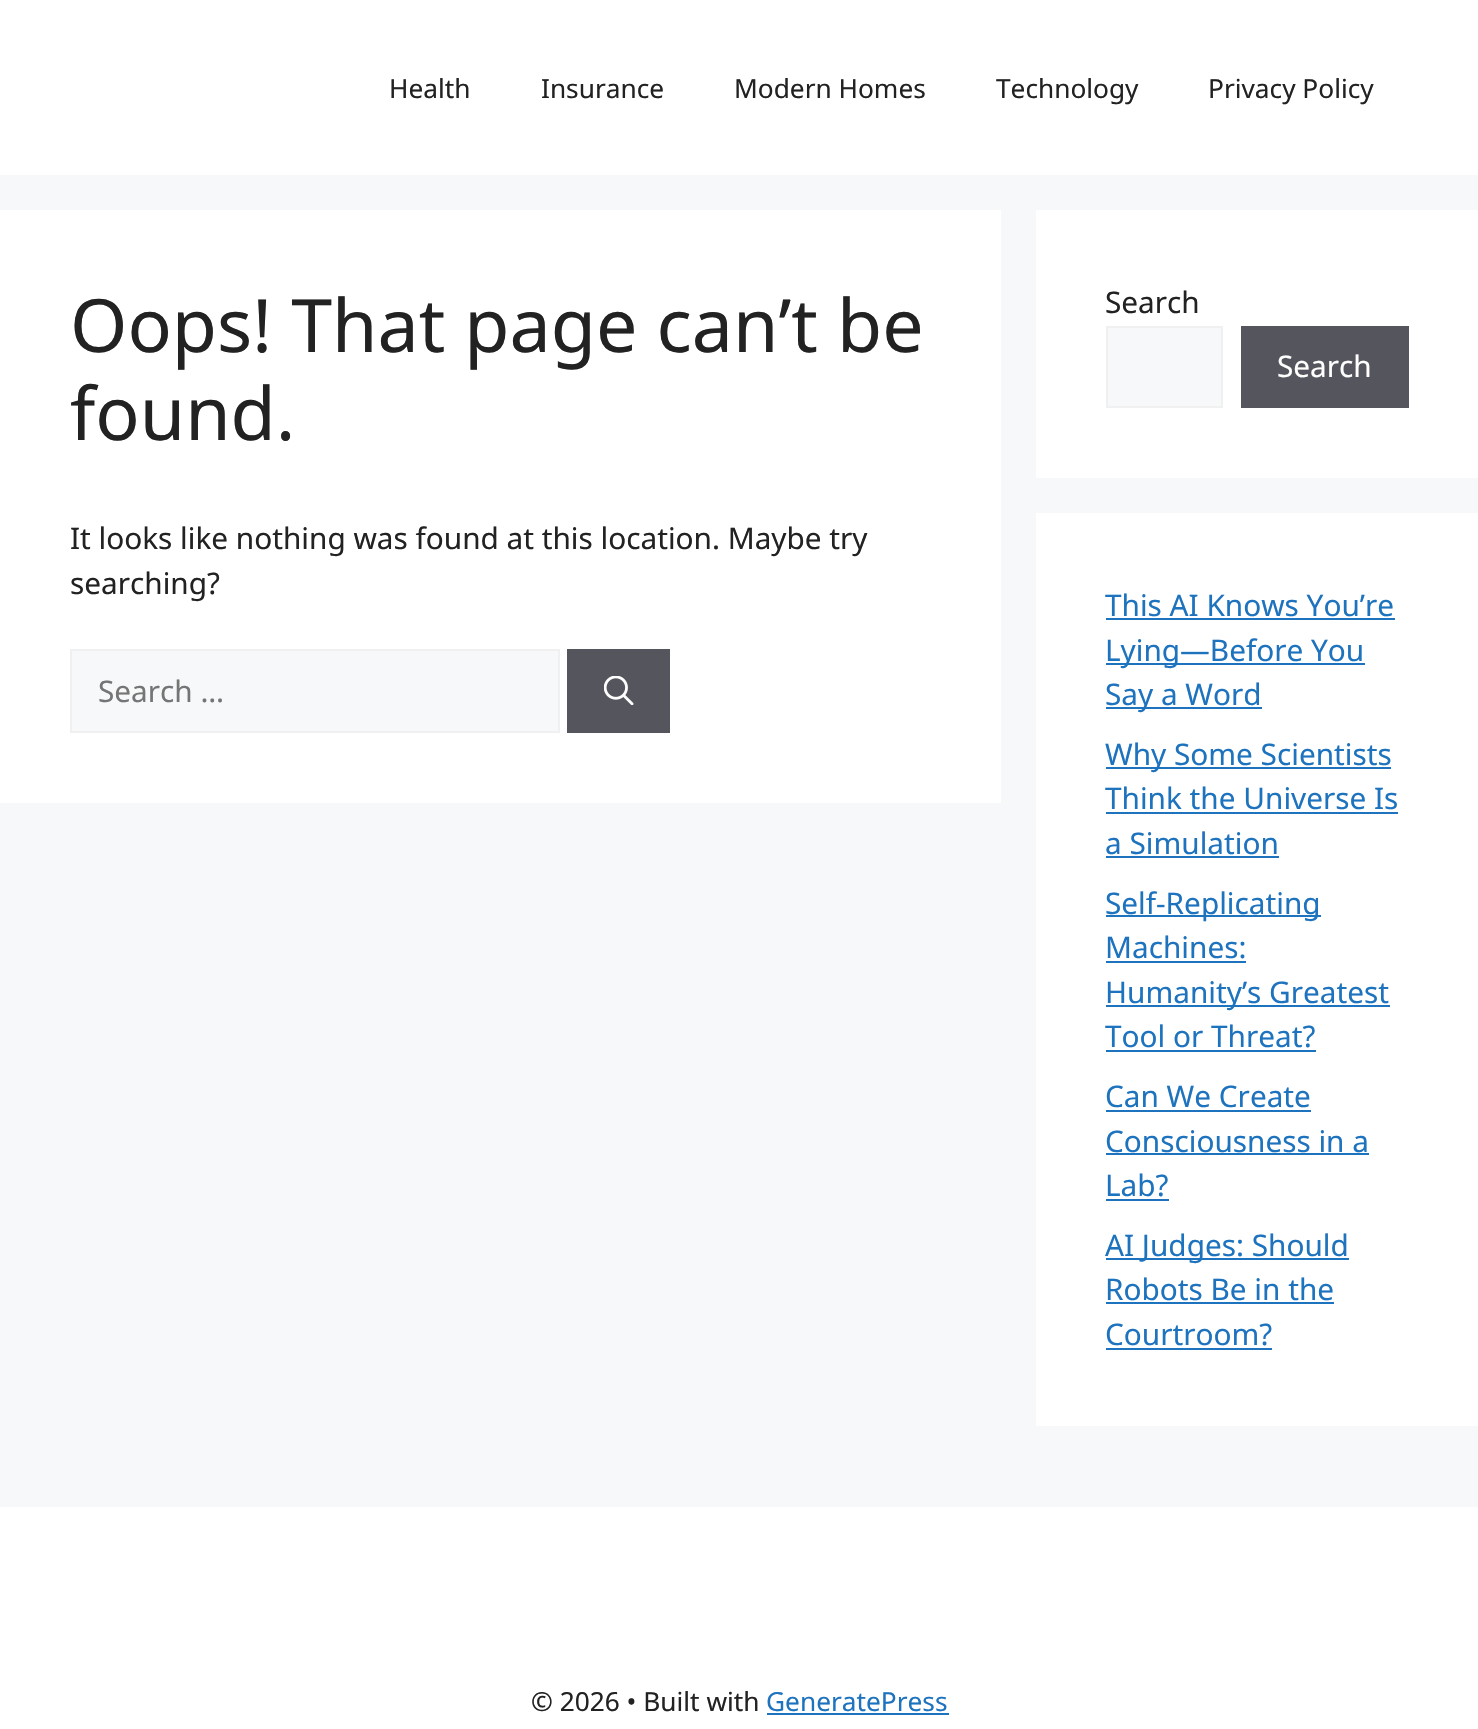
void draw(SkCanvas* canvas) {
	SkPaint paint;
	paint.setAntiAlias(true);
	canvas->clear(0xfff7f8f9);
	paint.setColor(0xffffffff);
	canvas->drawRect(SkRect::MakeXYWH(0, 0, 1478, 175), paint);
	SkFont f1(fontMgr->matchFamilyStyle("Noto Sans", SkFontStyle::Normal()), 26.25);
	f1.setSubpixel(true);
	paint.setColor(0xff222222);
	canvas->drawString("Health", 389, 98, f1, paint);
	canvas->drawString("Insurance", 541, 98, f1, paint);
	canvas->drawString("Modern Homes", 734, 98, f1, paint);
	canvas->drawString("Technology", 996, 98, f1, paint);
	canvas->drawString("Privacy Policy", 1208, 98, f1, paint);
	paint.setColor(0xffffffff);
	canvas->drawRect(SkRect::MakeXYWH(0, 210, 1001, 593), paint);
	SkFont f2(fontMgr->matchFamilyStyle("Noto Sans", SkFontStyle::Normal()), 73.5);
	f2.setSubpixel(true);
	paint.setColor(0xff222222);
	canvas->drawString("Oops! That page can’t be", 70, 352, f2, paint);
	canvas->drawString("found.", 70, 440, f2, paint);
	SkFont f3(fontMgr->matchFamilyStyle("Noto Sans", SkFontStyle::Normal()), 29.75);
	f3.setSubpixel(true);
	canvas->drawString("It looks like nothing was found at this location. Maybe try", 70, 549, f3, paint);
	canvas->drawString("searching?", 70, 594, f3, paint);
	paint.setColor(0xfff7f8f9);
	canvas->drawRect(SkRect::MakeXYWH(71, 650, 488, 82), paint);
	paint.setStroke(true);
	paint.setStrokeWidth(2);
	paint.setColor(0xfff0f0f0);
	canvas->drawRect(SkRect::MakeXYWH(71, 650, 488, 82), paint);
	paint.setStroke(false);
	paint.setColor(0xff757575);
	canvas->drawString("Search …", 98, 702, f3, paint);
	paint.setColor(0xff55555e);
	canvas->drawRect(SkRect::MakeXYWH(567, 649, 103, 84), paint);
	canvas->drawImageRect(SkImages::DeferredFromEncodedData(SkData::MakeFromFileName("img1.png")), SkRect::MakeXYWH(604, 676, 30, 29), SkSamplingOptions());
	paint.setColor(0xffffffff);
	canvas->drawRect(SkRect::MakeXYWH(1036, 210, 442, 268), paint);
	paint.setColor(0xff222222);
	canvas->drawString("Search", 1105, 313, f3, paint);
	paint.setColor(0xfff7f8f9);
	canvas->drawRect(SkRect::MakeXYWH(1107, 327, 115, 80), paint);
	paint.setStroke(true);
	paint.setColor(0xfff0f0f0);
	canvas->drawRect(SkRect::MakeXYWH(1107, 327, 115, 80), paint);
	paint.setStroke(false);
	paint.setColor(0xff55555e);
	canvas->drawRect(SkRect::MakeXYWH(1241, 326, 168, 82), paint);
	paint.setColor(0xffffffff);
	canvas->drawString("Search", 1277, 377, f3, paint);
	canvas->drawRect(SkRect::MakeXYWH(1036, 513, 442, 913), paint);
	paint.setColor(0xff1e73be);
	canvas->drawString("This AI Knows You’re", 1105, 616, f3, paint);
	canvas->drawRect(SkRect::MakeXYWH(1106, 618, 289, 2), paint);
	canvas->drawRect(SkRect::MakeXYWH(1106, 663, 259, 2), paint);
	canvas->drawString("Lying—Before You", 1105, 661, f3, paint);
	canvas->drawRect(SkRect::MakeXYWH(1106, 707, 156, 2), paint);
	canvas->drawString("Say a Word", 1105, 705, f3, paint);
	canvas->drawRect(SkRect::MakeXYWH(1106, 767, 285, 2), paint);
	canvas->drawString("Why Some Scientists", 1105, 765, f3, paint);
	canvas->drawString("Think the Universe Is", 1105, 809, f3, paint);
	canvas->drawRect(SkRect::MakeXYWH(1106, 812, 292, 2), paint);
	canvas->drawString("a Simulation", 1105, 854, f3, paint);
	canvas->drawRect(SkRect::MakeXYWH(1106, 856, 173, 2), paint);
	canvas->drawRect(SkRect::MakeXYWH(1106, 915, 215, 2), paint);
	canvas->drawString("Self-Replicating", 1105, 914, f3, paint);
	canvas->drawString("Machines:", 1105, 958, f3, paint);
	canvas->drawRect(SkRect::MakeXYWH(1106, 961, 140, 2), paint);
	canvas->drawRect(SkRect::MakeXYWH(1106, 1005, 284, 2), paint);
	canvas->drawString("Humanity’s Greatest", 1105, 1003, f3, paint);
	canvas->drawString("Tool or Threat?", 1105, 1047, f3, paint);
	canvas->drawRect(SkRect::MakeXYWH(1106, 1050, 210, 2), paint);
	canvas->drawString("Can We Create", 1105, 1107, f3, paint);
	canvas->drawRect(SkRect::MakeXYWH(1106, 1110, 205, 2), paint);
	canvas->drawString("Consciousness in a", 1105, 1152, f3, paint);
	canvas->drawRect(SkRect::MakeXYWH(1106, 1153, 263, 2), paint);
	canvas->drawString("Lab?", 1105, 1196, f3, paint);
	canvas->drawRect(SkRect::MakeXYWH(1106, 1199, 63, 2), paint);
	canvas->drawRect(SkRect::MakeXYWH(1106, 1258, 243, 2), paint);
	canvas->drawString("AI Judges: Should", 1105, 1256, f3, paint);
	canvas->drawString("Robots Be in the", 1105, 1300, f3, paint);
	canvas->drawRect(SkRect::MakeXYWH(1106, 1302, 228, 2), paint);
	canvas->drawString("Courtroom?", 1105, 1345, f3, paint);
	canvas->drawRect(SkRect::MakeXYWH(1106, 1348, 166, 2), paint);
	paint.setColor(0xffffffff);
	canvas->drawRect(SkRect::MakeXYWH(0, 1507, 1478, 222), paint);
	paint.setColor(0xff222222);
	canvas->drawString("© 2026 • Built with", 531, 1711, f1, paint);
	paint.setColor(0xff1e73be);
	canvas->drawString("GeneratePress", 766, 1711, f1, paint);
	canvas->drawRect(SkRect::MakeXYWH(767, 1713, 182, 2), paint);
}
